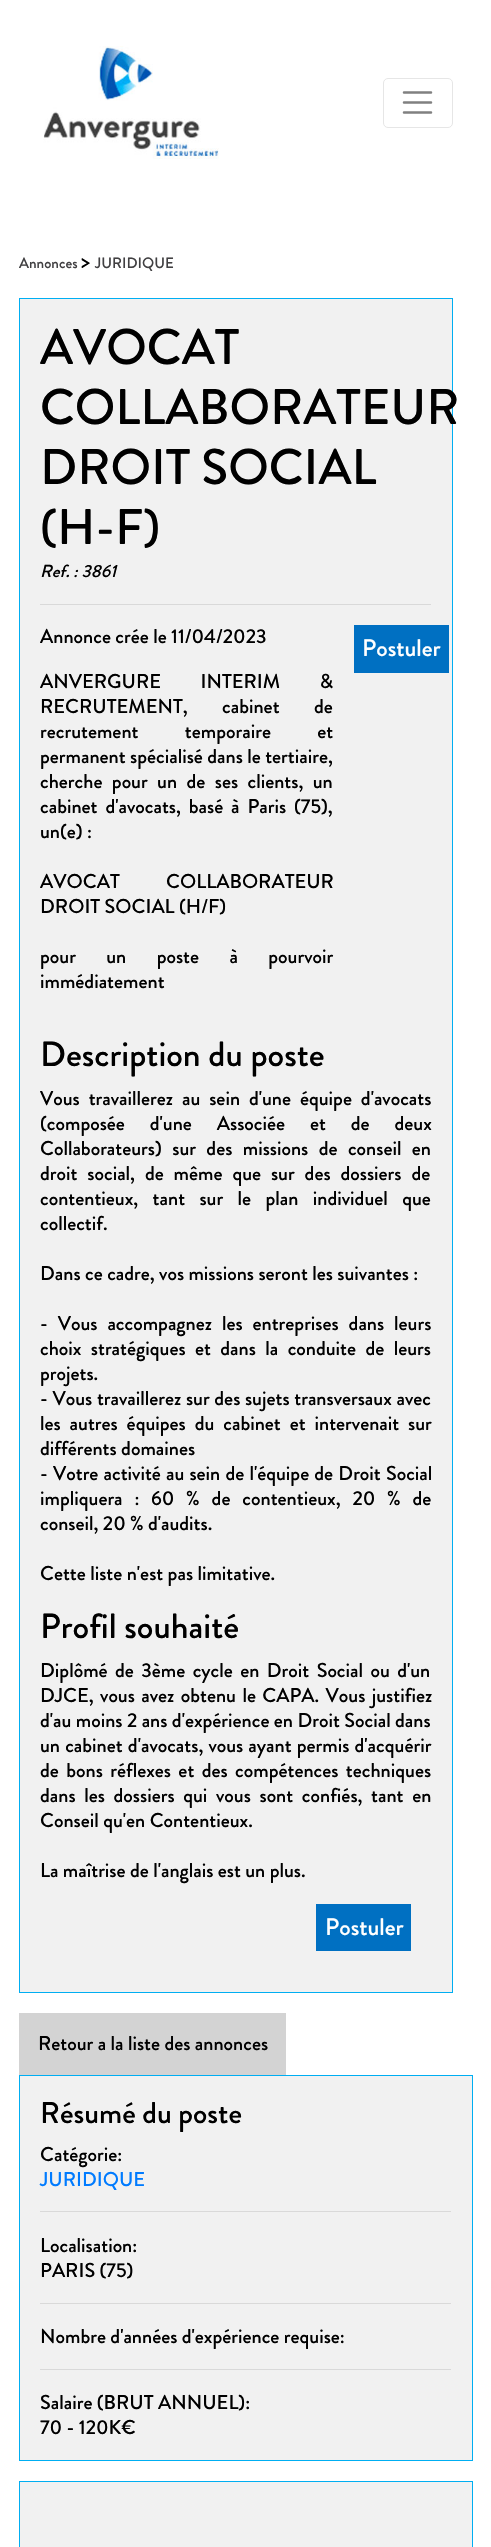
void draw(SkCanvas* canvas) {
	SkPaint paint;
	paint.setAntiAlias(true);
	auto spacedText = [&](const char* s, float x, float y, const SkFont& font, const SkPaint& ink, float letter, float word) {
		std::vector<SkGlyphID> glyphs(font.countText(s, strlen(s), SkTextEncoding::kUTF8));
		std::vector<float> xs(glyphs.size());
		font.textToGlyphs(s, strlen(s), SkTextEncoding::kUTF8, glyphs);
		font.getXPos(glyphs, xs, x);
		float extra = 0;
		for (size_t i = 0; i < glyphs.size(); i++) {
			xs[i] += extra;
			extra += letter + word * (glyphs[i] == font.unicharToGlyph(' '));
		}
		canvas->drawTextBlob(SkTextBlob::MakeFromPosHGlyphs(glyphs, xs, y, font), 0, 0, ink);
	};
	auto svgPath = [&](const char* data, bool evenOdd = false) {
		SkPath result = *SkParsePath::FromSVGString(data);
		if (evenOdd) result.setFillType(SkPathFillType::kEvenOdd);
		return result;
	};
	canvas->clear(0xffffffff);
	canvas->drawImageRect(SkImages::DeferredFromEncodedData(SkData::MakeFromFileName("img1.png")), SkRect::MakeXYWH(43, 46, 176, 113), SkSamplingOptions());
	paint.setStroke(true);
	paint.setStrokeWidth(1);
	paint.setColor(0xffe6e6e6);
	canvas->drawRoundRect(SkRect::MakeXYWH(383.5, 78.5, 69, 49), 4.5, 4.5, paint);
	paint.setStrokeWidth(2.5);
	paint.setStrokeCap(SkPaint::kRound_Cap);
	paint.setColor(0xff808080);
	canvas->drawPath(svgPath("M404 92.5H431M404 102.5H431M404 112.5H431"), paint);
	SkFont f1(fontMgr->matchFamilyStyle("Brandon Grotesque", SkFontStyle(500, SkFontStyle::kNormal_Width, SkFontStyle::kUpright_Slant)), 15);
	f1.setSubpixel(true);
	paint.setStroke(false);
	paint.setColor(0xff414042);
	canvas->drawString("Annonces", 19, 268, f1, paint);
	SkFont f2(fontMgr->matchFamilyStyle("Brandon Grotesque", SkFontStyle(500, SkFontStyle::kNormal_Width, SkFontStyle::kUpright_Slant)), 21);
	f2.setSubpixel(true);
	paint.setColor(0xff000000);
	canvas->drawString(">", 81, 268, f2, paint);
	paint.setColor(0xff414042);
	canvas->drawString("JURIDIQUE", 95, 268, f1, paint);
	paint.setColor(0xfff1f1f1);
	canvas->drawRect(SkRect::MakeXYWH(19.5, 298.5, 433, 1694), paint);
	paint.setStroke(true);
	paint.setStrokeWidth(1);
	paint.setStrokeCap(SkPaint::kButt_Cap);
	paint.setColor(0xff00aef2);
	canvas->drawRect(SkRect::MakeXYWH(19.5, 298.5, 433, 1694), paint);
	SkFont f3(fontMgr->matchFamilyStyle("Brandon Grotesque", SkFontStyle(500, SkFontStyle::kNormal_Width, SkFontStyle::kUpright_Slant)), 50);
	f3.setSubpixel(true);
	paint.setStroke(false);
	paint.setColor(0xff000000);
	canvas->drawString("AVOCAT", 40, 364, f3, paint);
	canvas->drawString("COLLABORATEUR", 40, 424, f3, paint);
	canvas->drawString("DROIT SOCIAL", 40, 484, f3, paint);
	canvas->drawString("(H-F)", 40, 544, f3, paint);
	SkFont f4(fontMgr->matchFamilyStyle("Brandon Grotesque", SkFontStyle(500, SkFontStyle::kNormal_Width, SkFontStyle::kItalic_Slant)), 17.5);
	f4.setSubpixel(true);
	canvas->drawString("Ref. : 3861", 40, 577, f4, paint);
	paint.setColor(0xffd9d9d9);
	canvas->drawRect(SkRect::MakeXYWH(40, 604, 391, 1), paint);
	SkFont f5(fontMgr->matchFamilyStyle("Brandon Grotesque", SkFontStyle(500, SkFontStyle::kNormal_Width, SkFontStyle::kUpright_Slant)), 20);
	f5.setSubpixel(true);
	paint.setColor(0xff000000);
	canvas->drawString("Annonce crée le 11/04/2023", 40, 643, f5, paint);
	spacedText("ANVERGURE INTERIM &", 40, 688, f5, paint, 0, 35);
	spacedText("RECRUTEMENT, cabinet de", 40, 713, f5, paint, 0, 30);
	spacedText("recrutement temporaire et", 40, 738, f5, paint, 0, 42);
	canvas->drawString("permanent spécialisé dans le tertiaire,", 40, 763, f5, paint);
	spacedText("cherche pour un de ses clients, un", 40, 788, f5, paint, 0, 5);
	spacedText("cabinet d'avocats, basé à Paris (75),", 40, 813, f5, paint, 0, 3.5);
	canvas->drawString("un(e) :", 40, 838, f5, paint);
	spacedText("AVOCAT COLLABORATEUR", 40, 888, f5, paint, 0, 42);
	canvas->drawString("DROIT SOCIAL (H/F)", 40, 913, f5, paint);
	spacedText("pour un poste à pourvoir", 40, 963, f5, paint, 0, 26);
	canvas->drawString("immédiatement", 40, 988, f5, paint);
	paint.setColor(0xff0070c2);
	canvas->drawRect(SkRect::MakeXYWH(354, 625, 95, 48), paint);
	SkFont f6(fontMgr->matchFamilyStyle("Brandon Grotesque", SkFontStyle(500, SkFontStyle::kNormal_Width, SkFontStyle::kUpright_Slant)), 24);
	f6.setSubpixel(true);
	paint.setColor(0xffffffff);
	canvas->drawString("Postuler", 362, 656, f6, paint);
	SkFont f7(fontMgr->matchFamilyStyle("Brandon Grotesque", SkFontStyle(500, SkFontStyle::kNormal_Width, SkFontStyle::kUpright_Slant)), 35);
	f7.setSubpixel(true);
	paint.setColor(0xff000000);
	canvas->drawString("Description du poste", 40, 1066, f7, paint);
	spacedText("Vous travaillerez au sein d'une équipe d'avocats", 40, 1105, f5, paint, 0, 4.5);
	spacedText("(composée d'une Associée et de deux", 40, 1130, f5, paint, 0, 20.5);
	spacedText("Collaborateurs) sur des missions de conseil en", 40, 1155, f5, paint, 0, 6);
	spacedText("droit social, de même que sur des dossiers de", 40, 1180, f5, paint, 0, 5.5);
	spacedText("contentieux, tant sur le plan individuel que", 40, 1205, f5, paint, 0, 10);
	canvas->drawString("collectif.", 40, 1230, f5, paint);
	canvas->drawString("Dans ce cadre, vos missions seront les suivantes :", 40, 1280, f5, paint);
	spacedText("- Vous accompagnez les entreprises dans leurs", 40, 1330, f5, paint, 0, 5.5);
	spacedText("choix stratégiques et dans la conduite de leurs", 40, 1355, f5, paint, 0, 5);
	canvas->drawString("projets.", 40, 1380, f5, paint);
	spacedText("- Vous travaillerez sur des sujets transversaux avec", 40, 1405, f5, paint, 0, 0.25);
	spacedText("les autres équipes du cabinet et intervenait sur", 40, 1430, f5, paint, 0, 4.5);
	canvas->drawString("différents domaines", 40, 1455, f5, paint);
	spacedText("- Votre activité au sein de l'équipe de Droit Social", 40, 1480, f5, paint, 0, 0.75);
	spacedText("impliquera :", 40, 1505, f5, paint, 0, 7.5);
	spacedText("60 % de contentieux, 20 % de", 151, 1505, f5, paint, 0, 7.5);
	canvas->drawString("conseil, 20 % d'audits.", 40, 1530, f5, paint);
	canvas->drawString("Cette liste n'est pas limitative.", 40, 1580, f5, paint);
	canvas->drawString("Profil souhaité", 40, 1638, f7, paint);
	spacedText("Diplômé de 3ème cycle en Droit Social ou d'un", 40, 1677, f5, paint, 0, 3);
	spacedText("DJCE, vous avez obtenu le CAPA. Vous justifiez", 40, 1702, f5, paint, 0, 2);
	canvas->drawString("d'au moins 2 ans d'expérience en Droit Social dans", 40, 1727, f5, paint);
	spacedText("un cabinet d'avocats, vous ayant permis d'acquérir", 40, 1752, f5, paint, 0, 0.75);
	spacedText("de bons réflexes et des compétences techniques", 40, 1777, f5, paint, 0, 3);
	spacedText("dans les dossiers qui vous sont confiés, tant en", 40, 1802, f5, paint, 0, 4.25);
	canvas->drawString("Conseil qu'en Contentieux.", 40, 1827, f5, paint);
	canvas->drawString("La maîtrise de l'anglais est un plus.", 40, 1877, f5, paint);
	paint.setColor(0xff0070c2);
	canvas->drawRect(SkRect::MakeXYWH(316, 1904, 95, 47), paint);
	paint.setColor(0xffffffff);
	canvas->drawString("Postuler", 325, 1935, f6, paint);
	paint.setColor(0xffd3d3d3);
	canvas->drawRect(SkRect::MakeXYWH(19, 2013, 267, 62), paint);
	paint.setColor(0xff000000);
	canvas->drawString("Retour a la liste des annonces", 38, 2050, f5, paint);
	paint.setColor(0xfff1f1f1);
	canvas->drawRect(SkRect::MakeXYWH(19.5, 2075.5, 453, 385), paint);
	paint.setStroke(true);
	paint.setColor(0xff00aef2);
	canvas->drawRect(SkRect::MakeXYWH(19.5, 2075.5, 453, 385), paint);
	SkFont f8(fontMgr->matchFamilyStyle("Brandon Grotesque", SkFontStyle(500, SkFontStyle::kNormal_Width, SkFontStyle::kUpright_Slant)), 30);
	f8.setSubpixel(true);
	paint.setStroke(false);
	paint.setColor(0xff000000);
	canvas->drawString("Résumé du poste", 40, 2123, f8, paint);
	canvas->drawString("Catégorie:", 40, 2161, f5, paint);
	paint.setColor(0xff007bff);
	canvas->drawString("JURIDIQUE", 40, 2186, f5, paint);
	paint.setColor(0xffd9d9d9);
	canvas->drawRect(SkRect::MakeXYWH(40, 2211, 411, 1), paint);
	paint.setColor(0xff000000);
	canvas->drawString("Localisation:", 40, 2252, f5, paint);
	canvas->drawString("PARIS (75)", 40, 2277, f5, paint);
	paint.setColor(0xffd9d9d9);
	canvas->drawRect(SkRect::MakeXYWH(40, 2303, 411, 1), paint);
	paint.setColor(0xff000000);
	canvas->drawString("Nombre d'années d'expérience requise:", 40, 2343, f5, paint);
	paint.setColor(0xffd9d9d9);
	canvas->drawRect(SkRect::MakeXYWH(40, 2369, 411, 1), paint);
	paint.setColor(0xff000000);
	canvas->drawString("Salaire (BRUT ANNUEL):", 40, 2409, f5, paint);
	canvas->drawString("70 - 120K€", 40, 2434, f5, paint);
	paint.setColor(0xfff1f1f1);
	canvas->drawRect(SkRect::MakeXYWH(19.5, 2481.5, 453, 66), paint);
	paint.setStroke(true);
	paint.setColor(0xff00aef2);
	canvas->drawRect(SkRect::MakeXYWH(19.5, 2481.5, 453, 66), paint);
}
